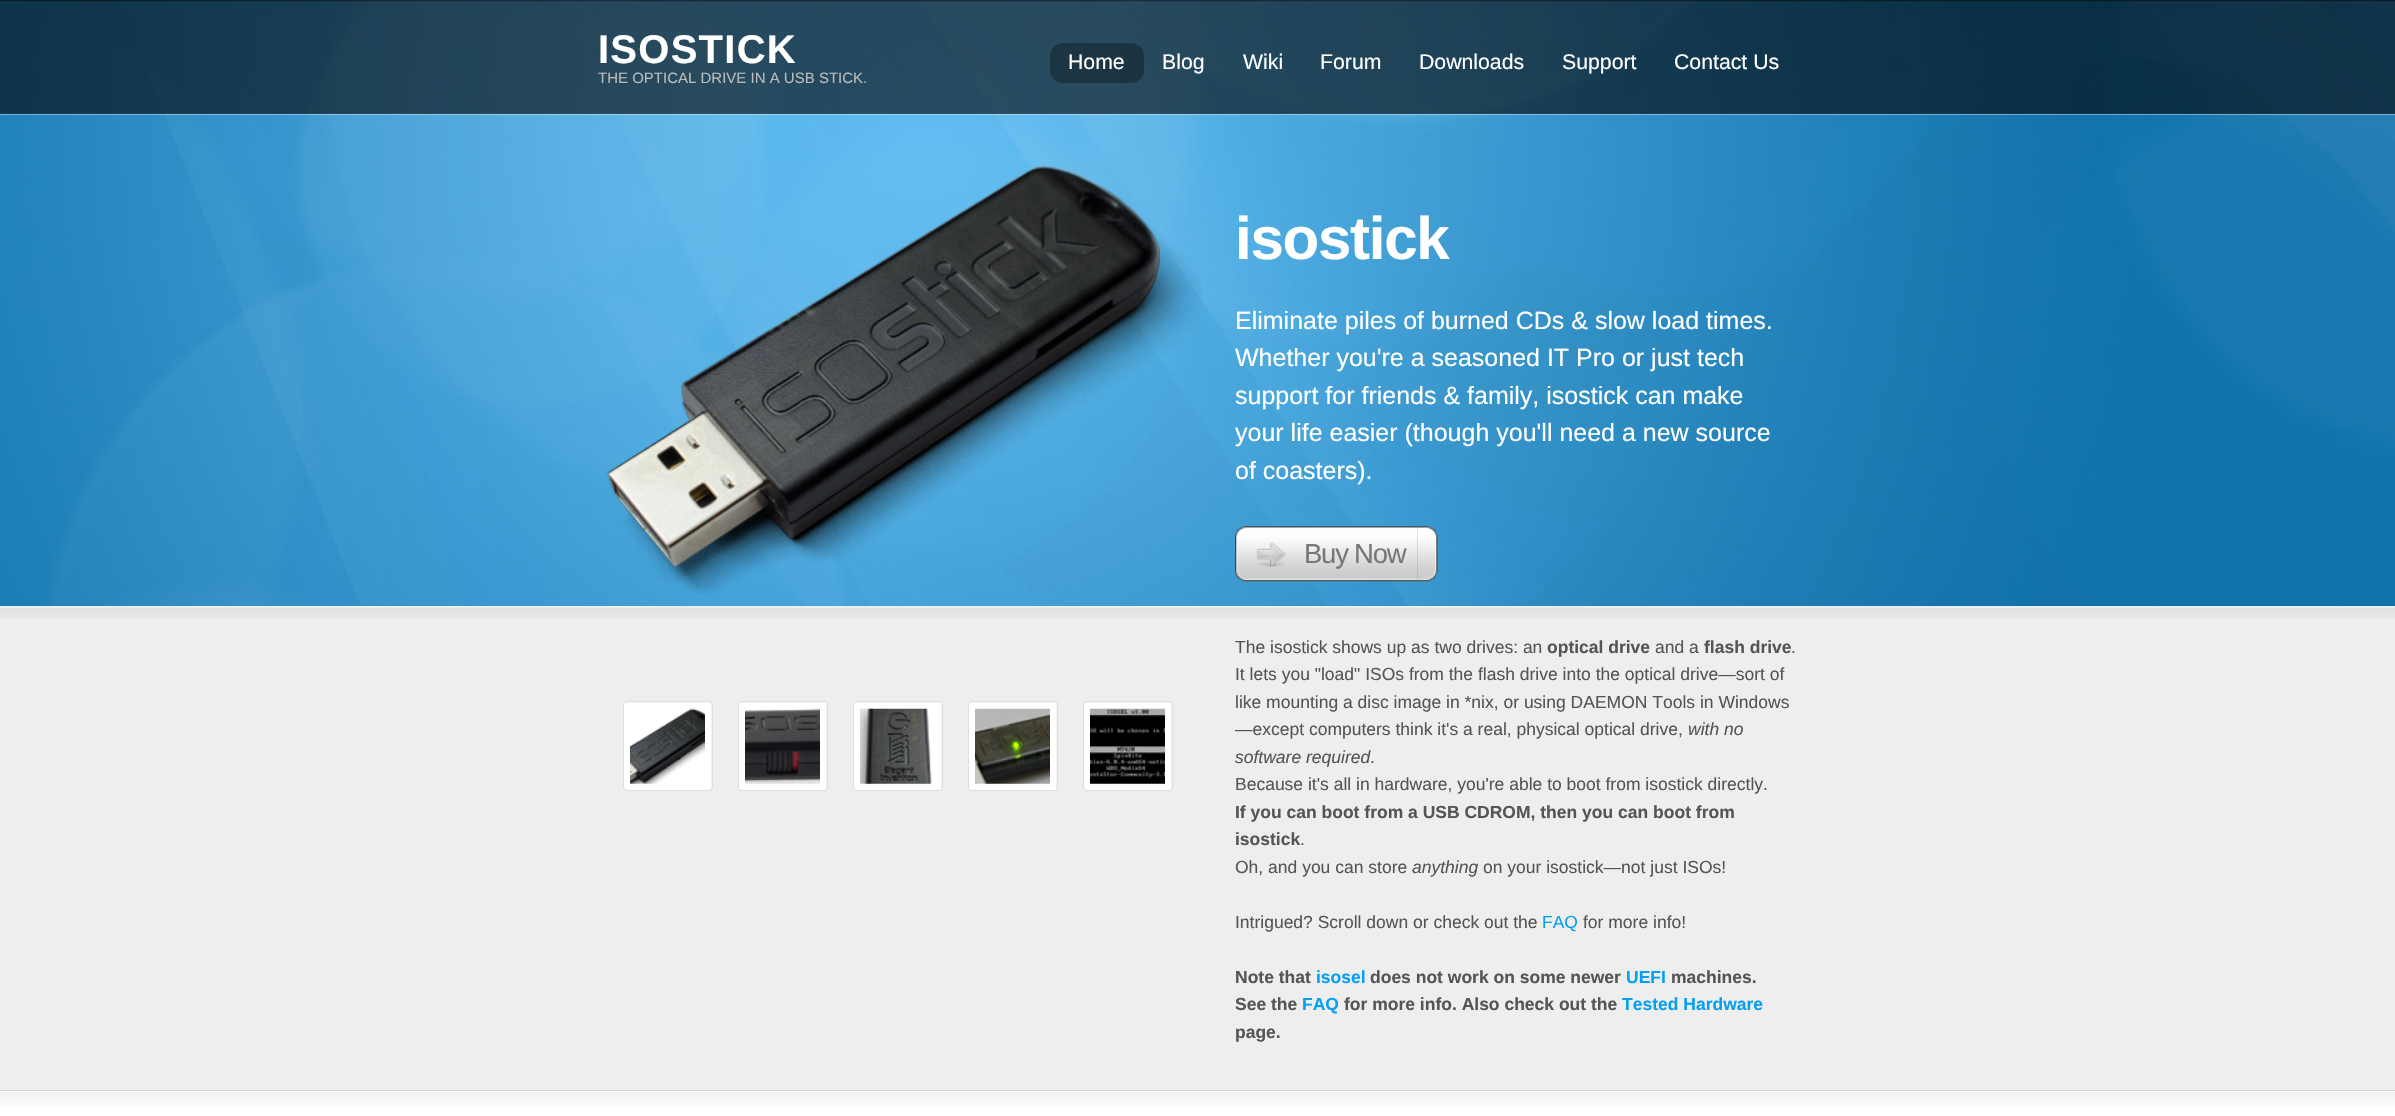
void draw(SkCanvas* canvas) {
	SkPaint paint;
	paint.setAntiAlias(true);
	auto spacedText = [&](const char* s, float x, float y, const SkFont& font, const SkPaint& ink, float letter, float word) {
		std::vector<SkGlyphID> glyphs(font.countText(s, strlen(s), SkTextEncoding::kUTF8));
		std::vector<float> xs(glyphs.size());
		font.textToGlyphs(s, strlen(s), SkTextEncoding::kUTF8, glyphs);
		font.getXPos(glyphs, xs, x);
		float extra = 0;
		for (size_t i = 0; i < glyphs.size(); i++) {
			xs[i] += extra;
			extra += letter + word * (glyphs[i] == font.unicharToGlyph(' '));
		}
		canvas->drawTextBlob(SkTextBlob::MakeFromPosHGlyphs(glyphs, xs, y, font), 0, 0, ink);
	};
	canvas->clear(0xffffffff);
	canvas->drawImageRect(SkImages::DeferredFromEncodedData(SkData::MakeFromFileName("img1.png")), SkRect::MakeXYWH(0, 0, 2395, 606), SkSamplingOptions());
	canvas->drawImageRect(SkImages::DeferredFromEncodedData(SkData::MakeFromFileName("img2.png")), SkRect::MakeXYWH(0, 113, 2395, 2), SkSamplingOptions());
	paint.setColor(0x99000000);
	canvas->drawRect(SkRect::MakeXYWH(0, 0, 2395, 114), paint);
	SkFont f1(fontMgr->matchFamilyStyle("Liberation Sans", SkFontStyle::Bold()), 40);
	f1.setSubpixel(true);
	paint.setColor(0xffffffff);
	spacedText("ISOSTICK", 598, 63, f1, paint, 1.25, 0);
	SkFont f2(fontMgr->matchFamilyStyle("Liberation Sans", SkFontStyle::Normal()), 15);
	f2.setSubpixel(true);
	paint.setColor(0xffbbbbbb);
	canvas->drawString("THE OPTICAL DRIVE IN A USB STICK.", 598, 83, f2, paint);
	paint.setColor(0x4d000000);
	canvas->drawRoundRect(SkRect::MakeXYWH(1050, 43, 94, 40), 13, 13, paint);
	SkFont f3(fontMgr->matchFamilyStyle("Liberation Sans", SkFontStyle::Normal()), 21.25);
	f3.setSubpixel(true);
	paint.setColor(0xffffffff);
	canvas->drawString("Home", 1068, 69, f3, paint);
	canvas->drawString("Blog", 1162, 69, f3, paint);
	canvas->drawString("Wiki", 1243, 69, f3, paint);
	canvas->drawString("Forum", 1320, 69, f3, paint);
	canvas->drawString("Downloads", 1419, 69, f3, paint);
	canvas->drawString("Support", 1562, 69, f3, paint);
	canvas->drawString("Contact Us", 1674, 69, f3, paint);
	canvas->drawImageRect(SkImages::DeferredFromEncodedData(SkData::MakeFromFileName("img3.png")), SkRect::MakeXYWH(607, 165, 594, 429), SkSamplingOptions());
	SkFont f4(fontMgr->matchFamilyStyle("Liberation Sans", SkFontStyle::Bold()), 60);
	f4.setSubpixel(true);
	spacedText("isostick", 1235, 259, f4, paint, -1.25, 0);
	SkFont f5(fontMgr->matchFamilyStyle("Liberation Sans", SkFontStyle::Normal()), 25);
	f5.setSubpixel(true);
	canvas->drawString("Eliminate piles of burned CDs & slow load times.", 1235, 329, f5, paint);
	canvas->drawString("Whether you're a seasoned IT Pro or just tech", 1235, 366, f5, paint);
	canvas->drawString("support for friends & family, isostick can make", 1235, 404, f5, paint);
	canvas->drawString("your life easier (though you'll need a new source", 1235, 441, f5, paint);
	canvas->drawString("of coasters).", 1235, 479, f5, paint);
	canvas->drawImageRect(SkImages::DeferredFromEncodedData(SkData::MakeFromFileName("img4.png")), SkRect::MakeXYWH(1417, 526, 21, 56), SkSamplingOptions());
	canvas->drawImageRect(SkImages::DeferredFromEncodedData(SkData::MakeFromFileName("img5.png")), SkRect::MakeXYWH(1235, 526, 183, 56), SkSamplingOptions());
	SkFont f6(fontMgr->matchFamilyStyle("Liberation Sans", SkFontStyle::Normal()), 27.5);
	f6.setSubpixel(true);
	paint.setColor(0xff777777);
	spacedText("Buy Now", 1304, 563, f6, paint, -1.25, 0);
	paint.setColor(0xffeeeeee);
	canvas->drawRect(SkRect::MakeXYWH(0, 606, 2395, 484), paint);
	canvas->drawImageRect(SkImages::DeferredFromEncodedData(SkData::MakeFromFileName("img6.png")), SkRect::MakeXYWH(0, 608, 2395, 11), SkSamplingOptions());
	paint.setColor(0xffd5d5d5);
	canvas->drawRect(SkRect::MakeXYWH(0, 1090, 2395, 1), paint);
	canvas->drawImageRect(SkImages::DeferredFromEncodedData(SkData::MakeFromFileName("img7.png")), SkRect::MakeXYWH(623, 702, 89, 88), SkSamplingOptions());
	paint.setStroke(true);
	paint.setStrokeWidth(1);
	paint.setColor(0xffdddddd);
	canvas->drawRoundRect(SkRect::MakeXYWH(623.5, 701.5, 89, 89), 3.5, 3.5, paint);
	canvas->drawImageRect(SkImages::DeferredFromEncodedData(SkData::MakeFromFileName("img8.png")), SkRect::MakeXYWH(630, 708, 75, 76), SkSamplingOptions());
	canvas->drawImageRect(SkImages::DeferredFromEncodedData(SkData::MakeFromFileName("img7.png")), SkRect::MakeXYWH(738, 702, 89, 88), SkSamplingOptions());
	canvas->drawRoundRect(SkRect::MakeXYWH(738.5, 701.5, 89, 89), 3.5, 3.5, paint);
	canvas->drawImageRect(SkImages::DeferredFromEncodedData(SkData::MakeFromFileName("img9.png")), SkRect::MakeXYWH(745, 708, 75, 76), SkSamplingOptions());
	canvas->drawImageRect(SkImages::DeferredFromEncodedData(SkData::MakeFromFileName("img10.png")), SkRect::MakeXYWH(853, 702, 89, 88), SkSamplingOptions());
	canvas->drawRoundRect(SkRect::MakeXYWH(853.5, 701.5, 89, 89), 3.5, 3.5, paint);
	canvas->drawImageRect(SkImages::DeferredFromEncodedData(SkData::MakeFromFileName("img11.png")), SkRect::MakeXYWH(860, 708, 72, 76), SkSamplingOptions());
	canvas->drawImageRect(SkImages::DeferredFromEncodedData(SkData::MakeFromFileName("img12.png")), SkRect::MakeXYWH(968, 702, 89, 88), SkSamplingOptions());
	canvas->drawRoundRect(SkRect::MakeXYWH(968.5, 701.5, 89, 89), 3.5, 3.5, paint);
	canvas->drawImageRect(SkImages::DeferredFromEncodedData(SkData::MakeFromFileName("img13.png")), SkRect::MakeXYWH(975, 708, 75, 76), SkSamplingOptions());
	canvas->drawImageRect(SkImages::DeferredFromEncodedData(SkData::MakeFromFileName("img10.png")), SkRect::MakeXYWH(1083, 702, 89, 88), SkSamplingOptions());
	canvas->drawRoundRect(SkRect::MakeXYWH(1083.5, 701.5, 89, 89), 3.5, 3.5, paint);
	canvas->drawImageRect(SkImages::DeferredFromEncodedData(SkData::MakeFromFileName("img14.png")), SkRect::MakeXYWH(1090, 708, 75, 76), SkSamplingOptions());
	SkFont f7(fontMgr->matchFamilyStyle("Liberation Sans", SkFontStyle::Normal()), 17.5);
	f7.setSubpixel(true);
	paint.setStroke(false);
	paint.setColor(0xff555555);
	canvas->drawString("The isostick shows up as two drives: an", 1235, 653, f7, paint);
	SkFont f8(fontMgr->matchFamilyStyle("Liberation Sans", SkFontStyle::Bold()), 17.5);
	f8.setSubpixel(true);
	canvas->drawString("optical drive", 1547, 653, f8, paint);
	canvas->drawString("and a", 1655, 653, f7, paint);
	canvas->drawString("flash drive", 1704, 653, f8, paint);
	canvas->drawString(".", 1791, 653, f7, paint);
	canvas->drawString("It lets you \"load\" ISOs from the flash drive into the optical drive—sort of", 1235, 680, f7, paint);
	canvas->drawString("like mounting a disc image in *nix, or using DAEMON Tools in Windows", 1235, 708, f7, paint);
	canvas->drawString("—except computers think it's a real, physical optical drive,", 1235, 735, f7, paint);
	SkFont f9(fontMgr->matchFamilyStyle("Liberation Sans", SkFontStyle::Italic()), 17.5);
	f9.setSubpixel(true);
	canvas->drawString("with no", 1688, 735, f9, paint);
	canvas->drawString("software required", 1235, 763, f9, paint);
	canvas->drawString(".", 1370, 763, f7, paint);
	canvas->drawString("Because it's all in hardware, you're able to boot from isostick directly.", 1235, 790, f7, paint);
	canvas->drawString("If you can boot from a USB CDROM, then you can boot from", 1235, 818, f8, paint);
	canvas->drawString("isostick", 1235, 845, f8, paint);
	canvas->drawString(".", 1300, 845, f7, paint);
	canvas->drawString("Oh, and you can store", 1235, 873, f7, paint);
	canvas->drawString("anything", 1412, 873, f9, paint);
	canvas->drawString("on your isostick—not just ISOs!", 1483, 873, f7, paint);
	canvas->drawString("Intrigued? Scroll down or check out the", 1235, 928, f7, paint);
	paint.setColor(0xff06a0f0);
	canvas->drawString("FAQ", 1542, 928, f7, paint);
	paint.setColor(0xff555555);
	canvas->drawString("for more info!", 1583, 928, f7, paint);
	canvas->drawString("Note that", 1235, 983, f8, paint);
	paint.setColor(0xff06a0f0);
	canvas->drawString("isosel", 1316, 983, f8, paint);
	paint.setColor(0xff555555);
	canvas->drawString("does not work on some newer", 1370, 983, f8, paint);
	paint.setColor(0xff06a0f0);
	canvas->drawString("UEFI", 1626, 983, f8, paint);
	paint.setColor(0xff555555);
	canvas->drawString("machines.", 1671, 983, f8, paint);
	canvas->drawString("See the", 1235, 1010, f8, paint);
	paint.setColor(0xff06a0f0);
	canvas->drawString("FAQ", 1302, 1010, f8, paint);
	paint.setColor(0xff555555);
	canvas->drawString("for more info. Also check out the", 1344, 1010, f8, paint);
	paint.setColor(0xff06a0f0);
	canvas->drawString("Tested Hardware", 1622, 1010, f8, paint);
	paint.setColor(0xff555555);
	canvas->drawString("page.", 1235, 1038, f8, paint);
	canvas->drawImageRect(SkImages::DeferredFromEncodedData(SkData::MakeFromFileName("img15.png")), SkRect::MakeXYWH(0, 1091, 2395, 14), SkSamplingOptions());
}
